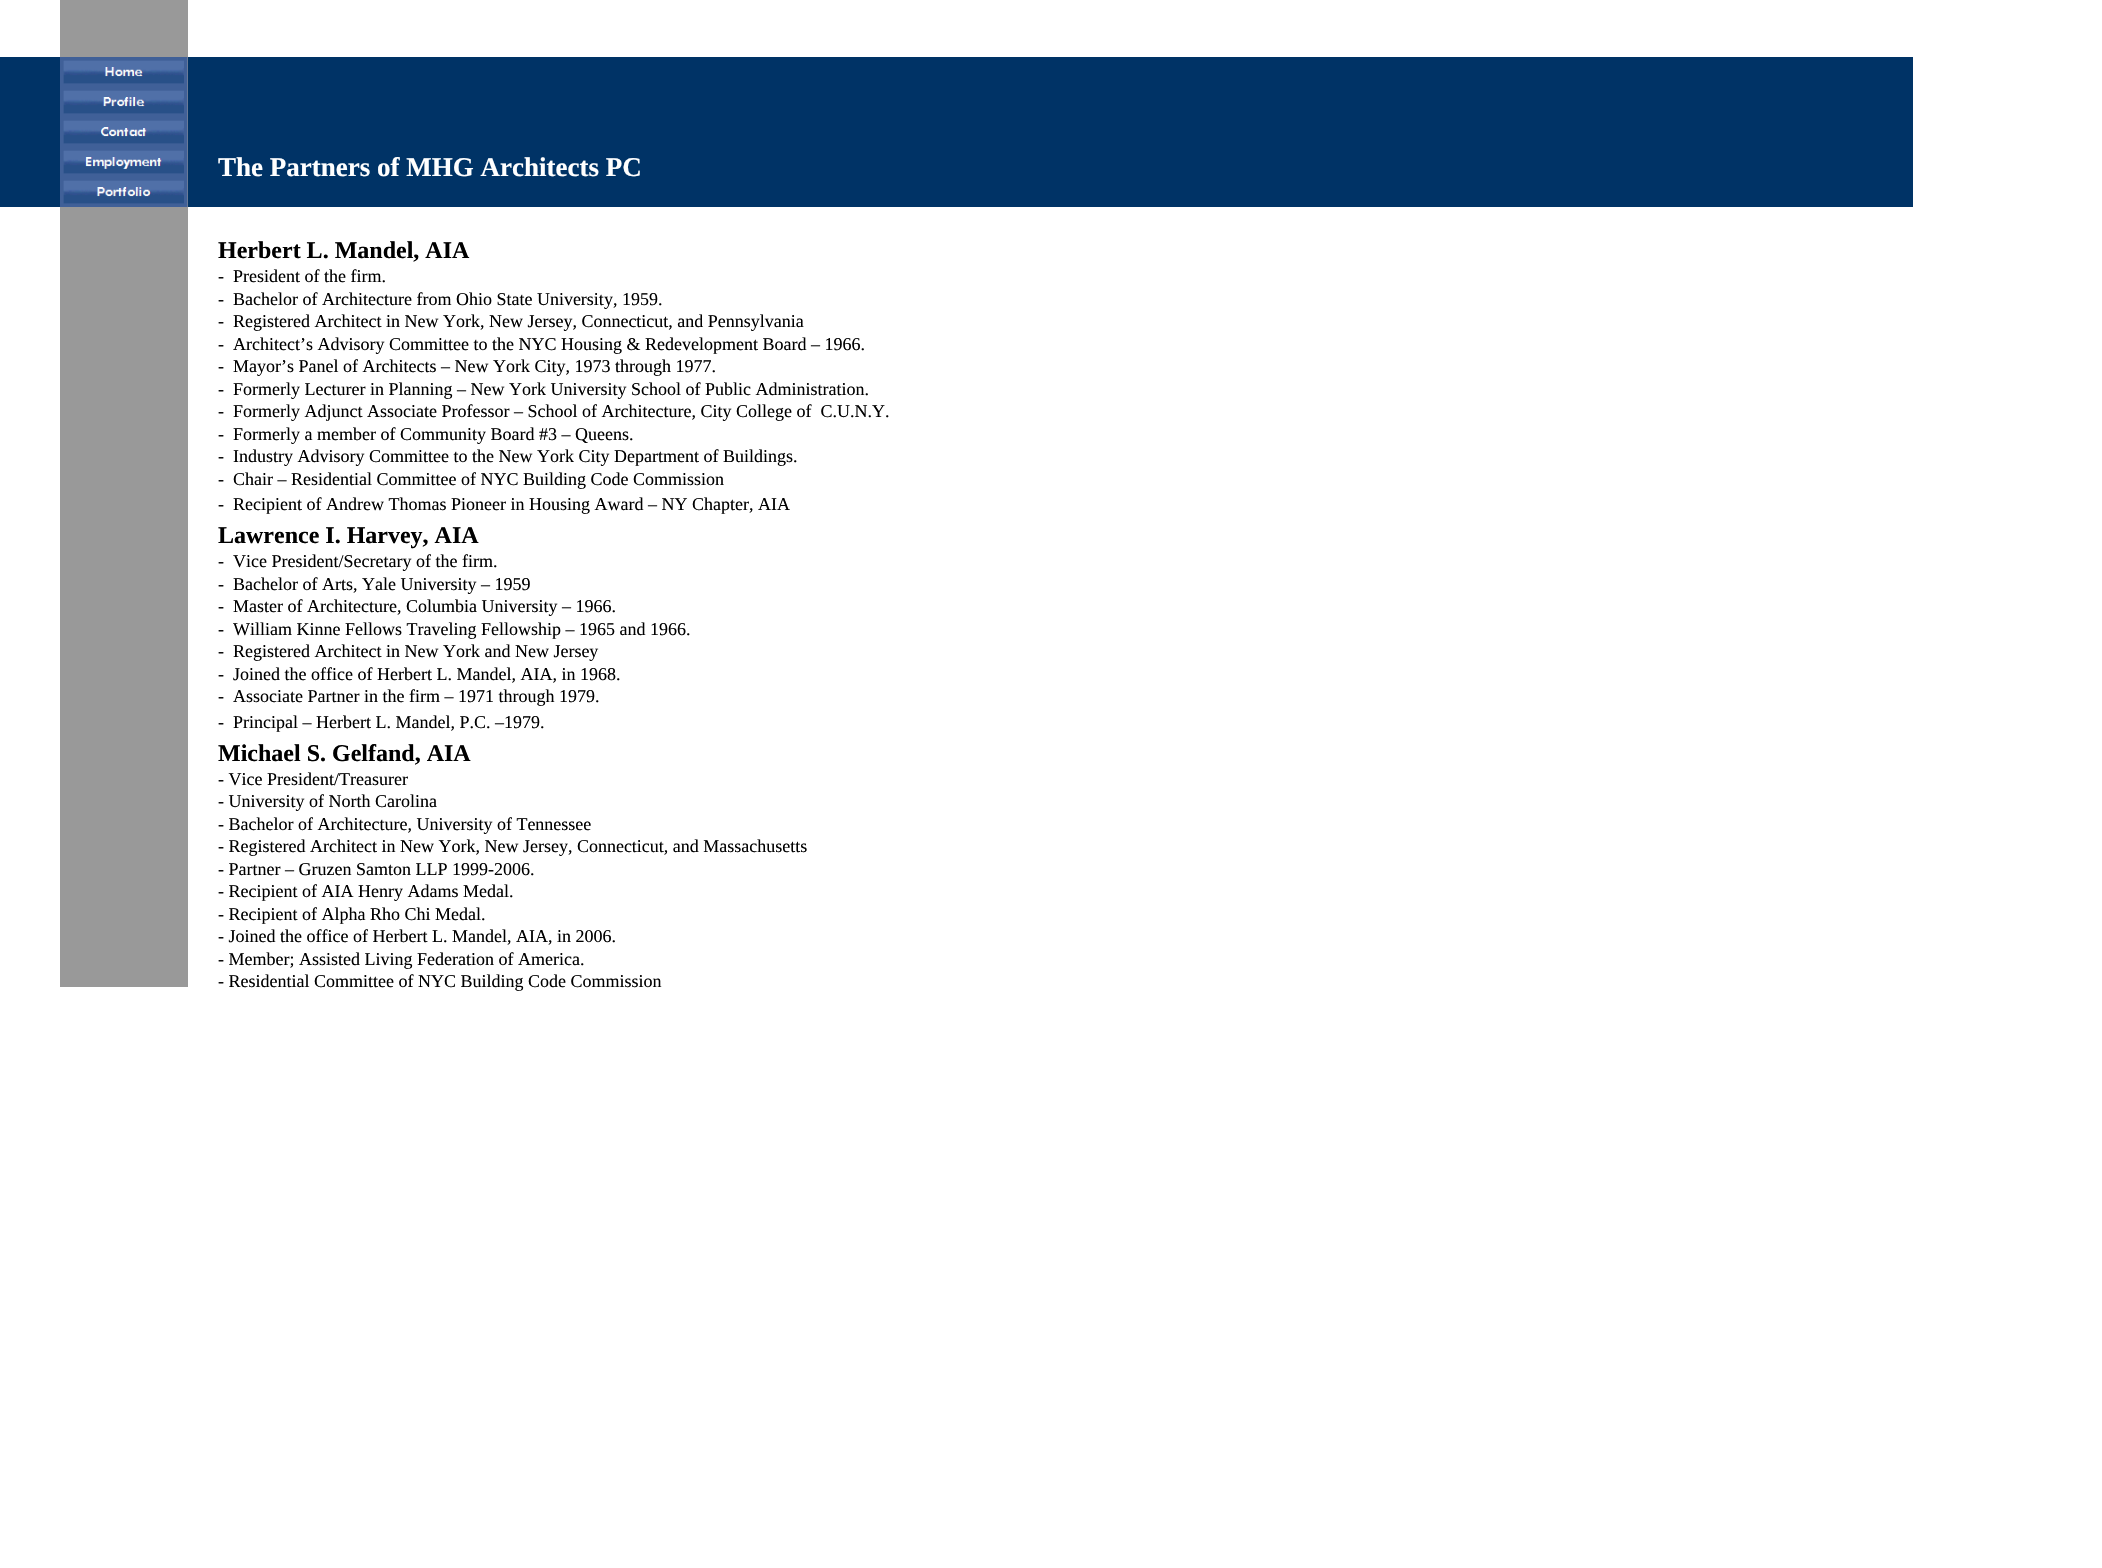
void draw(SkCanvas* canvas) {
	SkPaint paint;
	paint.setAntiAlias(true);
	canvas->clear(0xffffffff);
	paint.setColor(0xff003366);
	canvas->drawRect(SkRect::MakeXYWH(0, 57, 1913, 150), paint);
	paint.setColor(0xff999999);
	canvas->drawRect(SkRect::MakeXYWH(60, 0, 128, 987), paint);
	canvas->drawImageRect(SkImages::DeferredFromEncodedData(SkData::MakeFromFileName("img1.png")), SkRect::MakeXYWH(60, 57, 128, 30), SkSamplingOptions());
	canvas->drawImageRect(SkImages::DeferredFromEncodedData(SkData::MakeFromFileName("img2.png")), SkRect::MakeXYWH(60, 87, 128, 30), SkSamplingOptions());
	canvas->drawImageRect(SkImages::DeferredFromEncodedData(SkData::MakeFromFileName("img3.png")), SkRect::MakeXYWH(60, 117, 128, 30), SkSamplingOptions());
	canvas->drawImageRect(SkImages::DeferredFromEncodedData(SkData::MakeFromFileName("img4.png")), SkRect::MakeXYWH(60, 147, 128, 30), SkSamplingOptions());
	canvas->drawImageRect(SkImages::DeferredFromEncodedData(SkData::MakeFromFileName("img5.png")), SkRect::MakeXYWH(60, 177, 128, 30), SkSamplingOptions());
	SkFont f1(fontMgr->matchFamilyStyle("Liberation Serif", SkFontStyle::Bold()), 27);
	f1.setSubpixel(true);
	paint.setColor(0xffffffff);
	canvas->drawString("The Partners of MHG Architects PC", 218, 176, f1, paint);
	SkFont f2(fontMgr->matchFamilyStyle("Liberation Serif", SkFontStyle::Bold()), 24);
	f2.setSubpixel(true);
	paint.setColor(0xff000000);
	canvas->drawString("Herbert L. Mandel, AIA", 218, 258, f2, paint);
	SkFont f3(fontMgr->matchFamilyStyle("Liberation Serif", SkFontStyle::Normal()), 18);
	f3.setSubpixel(true);
	canvas->drawString("-  President of the firm.", 218, 282, f3, paint);
	canvas->drawString("-  Bachelor of Architecture from Ohio State University, 1959.", 218, 305, f3, paint);
	canvas->drawString("-  Registered Architect in New York, New Jersey, Connecticut, and Pennsylvania", 218, 327, f3, paint);
	canvas->drawString("-  Architect’s Advisory Committee to the NYC Housing & Redevelopment Board – 1966.", 218, 350, f3, paint);
	canvas->drawString("-  Mayor’s Panel of Architects – New York City, 1973 through 1977.", 218, 372, f3, paint);
	canvas->drawString("-  Formerly Lecturer in Planning – New York University School of Public Administration.", 218, 395, f3, paint);
	canvas->drawString("-  Formerly Adjunct Associate Professor – School of Architecture, City College of  C.U.N.Y.", 218, 417, f3, paint);
	canvas->drawString("-  Formerly a member of Community Board #3 – Queens.", 218, 440, f3, paint);
	canvas->drawString("-  Industry Advisory Committee to the New York City Department of Buildings.", 218, 462, f3, paint);
	canvas->drawString("-  Chair – Residential Committee of NYC Building Code Commission", 218, 485, f3, paint);
	canvas->drawString("-  Recipient of Andrew Thomas Pioneer in Housing Award – NY Chapter, AIA", 218, 510, f3, paint);
	canvas->drawString("Lawrence I. Harvey, AIA", 218, 543, f2, paint);
	canvas->drawString("-  Vice President/Secretary of the firm.", 218, 567, f3, paint);
	canvas->drawString("-  Bachelor of Arts, Yale University – 1959", 218, 590, f3, paint);
	canvas->drawString("-  Master of Architecture, Columbia University – 1966.", 218, 612, f3, paint);
	canvas->drawString("-  William Kinne Fellows Traveling Fellowship – 1965 and 1966.", 218, 635, f3, paint);
	canvas->drawString("-  Registered Architect in New York and New Jersey", 218, 657, f3, paint);
	canvas->drawString("-  Joined the office of Herbert L. Mandel, AIA, in 1968.", 218, 680, f3, paint);
	canvas->drawString("-  Associate Partner in the firm – 1971 through 1979.", 218, 702, f3, paint);
	canvas->drawString("-  Principal – Herbert L. Mandel, P.C. –1979.", 218, 728, f3, paint);
	canvas->drawString("Michael S. Gelfand, AIA", 218, 761, f2, paint);
	canvas->drawString("- Vice President/Treasurer", 218, 785, f3, paint);
	canvas->drawString("- University of North Carolina", 218, 807, f3, paint);
	canvas->drawString("- Bachelor of Architecture, University of Tennessee", 218, 830, f3, paint);
	canvas->drawString("- Registered Architect in New York, New Jersey, Connecticut, and Massachusetts", 218, 852, f3, paint);
	canvas->drawString("- Partner – Gruzen Samton LLP 1999-2006.", 218, 875, f3, paint);
	canvas->drawString("- Recipient of AIA Henry Adams Medal.", 218, 897, f3, paint);
	canvas->drawString("- Recipient of Alpha Rho Chi Medal.", 218, 920, f3, paint);
	canvas->drawString("- Joined the office of Herbert L. Mandel, AIA, in 2006.", 218, 942, f3, paint);
	canvas->drawString("- Member; Assisted Living Federation of America.", 218, 965, f3, paint);
	canvas->drawString("- Residential Committee of NYC Building Code Commission", 218, 987, f3, paint);
}
